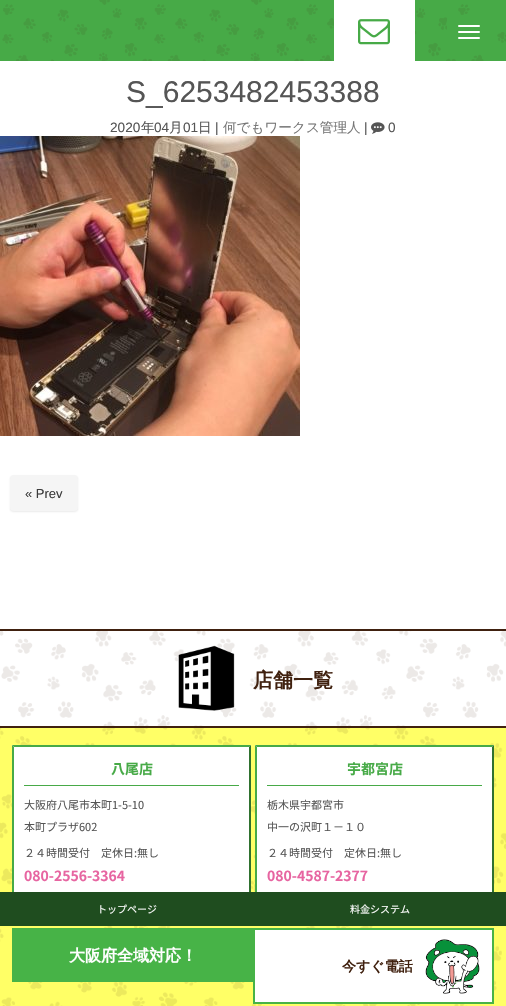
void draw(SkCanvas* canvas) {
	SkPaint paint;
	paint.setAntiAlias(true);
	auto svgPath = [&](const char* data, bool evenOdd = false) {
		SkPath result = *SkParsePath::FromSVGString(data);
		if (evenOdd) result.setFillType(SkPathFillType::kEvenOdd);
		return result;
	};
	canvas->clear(0xffffffff);
	paint.setColor(0xff47aa47);
	canvas->drawRect(SkRect::MakeXYWH(0, 0, 506, 61), paint);
	canvas->drawImageRect(SkImages::DeferredFromEncodedData(SkData::MakeFromFileName("img1.png")), SkRect::MakeXYWH(2, 0, 504, 61), SkSamplingOptions());
	paint.setColor(0xffffffff);
	canvas->drawRect(SkRect::MakeXYWH(334, 0, 81, 61), paint);
	canvas->drawImageRect(SkImages::DeferredFromEncodedData(SkData::MakeFromFileName("img2.png")), SkRect::MakeXYWH(358, 19, 32, 26), SkSamplingOptions());
	paint.setColor(0xff47aa47);
	canvas->drawRoundRect(SkRect::MakeXYWH(447, 15, 44, 34), 4, 4, paint);
	paint.setColor(0xffffffff);
	canvas->drawRoundRect(SkRect::MakeXYWH(458, 25, 22, 2), 1, 1, paint);
	canvas->drawRoundRect(SkRect::MakeXYWH(458, 31, 22, 2), 1, 1, paint);
	canvas->drawRoundRect(SkRect::MakeXYWH(458, 37, 22, 2), 1, 1, paint);
	SkFont f1(fontMgr->matchFamilyStyle("Liberation Sans", SkFontStyle::Normal()), 30);
	f1.setSubpixel(true);
	paint.setColor(0xff555555);
	canvas->drawString("S_6253482453388", 126, 102, f1, paint);
	SkFont f2(fontMgr->matchFamilyStyle("Liberation Sans", SkFontStyle::Normal()), 13.6);
	f2.setSubpixel(true);
	canvas->drawString("2020", 110, 132, f2, paint);
	SkFont f3(fontMgr->matchFamilyStyle("WenQuanYi Zen Hei", SkFontStyle(500, SkFontStyle::kNormal_Width, SkFontStyle::kUpright_Slant)), 13.6);
	f3.setSubpixel(true);
	canvas->drawString("年", 141, 132, f3, paint);
	canvas->drawString("04", 154, 132, f2, paint);
	canvas->drawString("月", 169, 132, f3, paint);
	canvas->drawString("01", 183, 132, f2, paint);
	canvas->drawString("日", 198, 132, f3, paint);
	canvas->drawString("|", 215, 132, f2, paint);
	paint.setColor(0xff777777);
	canvas->drawString("何でもワークス管理人", 223, 132, f3, paint);
	paint.setColor(0xff555555);
	canvas->drawString("|", 364, 132, f2, paint);
	canvas->drawImageRect(SkImages::DeferredFromEncodedData(SkData::MakeFromFileName("img3.png")), SkRect::MakeXYWH(371, 122, 14, 12), SkSamplingOptions());
	canvas->drawString("0", 388, 132, f2, paint);
	canvas->drawImageRect(SkImages::DeferredFromEncodedData(SkData::MakeFromFileName("img4.png")), SkRect::MakeXYWH(0, 136, 300, 300), SkSamplingOptions());
	paint.setColor(0x1a323232);
	paint.setMaskFilter(SkMaskFilter::MakeBlur(kNormal_SkBlurStyle, 1));
	canvas->drawRoundRect(SkRect::MakeXYWH(10, 476, 68, 36), 4, 4, paint);
	paint.setMaskFilter(nullptr);
	paint.setColor(0xfff5f5f5);
	canvas->drawRoundRect(SkRect::MakeXYWH(10, 475, 68, 36), 4, 4, paint);
	SkFont f4(fontMgr->matchFamilyStyle("Liberation Sans", SkFontStyle::Normal()), 13);
	f4.setSubpixel(true);
	paint.setColor(0xff3c3c3c);
	canvas->drawString("« Prev", 25, 498, f4, paint);
	canvas->drawImageRect(SkImages::DeferredFromEncodedData(SkData::MakeFromFileName("img5.png")), SkRect::MakeXYWH(0, 631, 506, 95), SkSamplingOptions());
	paint.setColor(0xff40210f);
	canvas->drawRect(SkRect::MakeXYWH(0, 629, 506, 2), paint);
	canvas->drawRect(SkRect::MakeXYWH(0, 726, 506, 2), paint);
	canvas->drawImageRect(SkImages::DeferredFromEncodedData(SkData::MakeFromFileName("img6.png")), SkRect::MakeXYWH(178, 645, 57, 66), SkSamplingOptions());
	SkFont f5(fontMgr->matchFamilyStyle("WenQuanYi Zen Hei", SkFontStyle::Bold()), 20);
	f5.setSubpixel(true);
	canvas->drawString("店舗一覧", 253, 687, f5, paint);
	paint.setColor(0xffffff66);
	canvas->drawRect(SkRect::MakeXYWH(0, 728, 506, 164), paint);
	canvas->drawImageRect(SkImages::DeferredFromEncodedData(SkData::MakeFromFileName("img7.png")), SkRect::MakeXYWH(0, 728, 506, 164), SkSamplingOptions());
	paint.setColor(0xffffffff);
	canvas->drawRect(SkRect::MakeXYWH(12, 745, 239, 147), paint);
	paint.setColor(0xff47aa47);
	canvas->drawPath(svgPath("M12 745H251L249 747H14Z"), paint);
	paint.setColor(0xff2f712f);
	canvas->drawPath(svgPath("M251 745V929L249 927V747Z"), paint);
	paint.setColor(0xff47aa47);
	canvas->drawPath(svgPath("M12 929V745L14 747V927Z"), paint);
	canvas->drawRect(SkRect::MakeXYWH(24, 785, 215, 1), paint);
	SkFont f6(fontMgr->matchFamilyStyle("Noto Sans JP", SkFontStyle::Bold()), 14);
	f6.setSubpixel(true);
	canvas->drawString("八尾店", 111, 774, f6, paint);
	SkFont f7(fontMgr->matchFamilyStyle("Noto Sans JP", SkFontStyle::Normal()), 11);
	f7.setSubpixel(true);
	paint.setColor(0xff555555);
	canvas->drawString("大阪府八尾市本町1-5-10", 24, 809, f7, paint);
	canvas->drawString("本町プラザ602", 24, 831, f7, paint);
	canvas->drawString("２４時間受付　定休日:無し", 24, 857, f7, paint);
	paint.setColor(0xffe765a1);
	canvas->drawString("080-2556-3364", 24, 881, f6, paint);
	paint.setColor(0xffffffff);
	canvas->drawRect(SkRect::MakeXYWH(255, 745, 239, 147), paint);
	paint.setColor(0xff47aa47);
	canvas->drawPath(svgPath("M255 745H494L492 747H257Z"), paint);
	paint.setColor(0xff2f712f);
	canvas->drawPath(svgPath("M494 745V929L492 927V747Z"), paint);
	paint.setColor(0xff47aa47);
	canvas->drawPath(svgPath("M255 929V745L257 747V927Z"), paint);
	canvas->drawRect(SkRect::MakeXYWH(267, 785, 215, 1), paint);
	canvas->drawString("宇都宮店", 347, 774, f6, paint);
	paint.setColor(0xff555555);
	canvas->drawString("栃木県宇都宮市", 267, 809, f7, paint);
	canvas->drawString("中一の沢町１−１０", 267, 831, f7, paint);
	canvas->drawString("２４時間受付　定休日:無し", 267, 857, f7, paint);
	paint.setColor(0xffe765a1);
	canvas->drawString("080-4587-2377", 267, 881, f6, paint);
	paint.setColor(0xffffff66);
	canvas->drawRect(SkRect::MakeXYWH(0, 926, 506, 80), paint);
	canvas->drawImageRect(SkImages::DeferredFromEncodedData(SkData::MakeFromFileName("img8.png")), SkRect::MakeXYWH(0, 926, 502, 80), SkSamplingOptions());
	paint.setColor(0xff1f4d1f);
	canvas->drawRect(SkRect::MakeXYWH(0, 892, 506, 34), paint);
	SkFont f8(fontMgr->matchFamilyStyle("Noto Sans JP", SkFontStyle::Normal()), 10);
	f8.setSubpixel(true);
	paint.setColor(0xffffffff);
	canvas->drawString("トップページ", 97, 913, f8, paint);
	canvas->drawString("料金システム", 350, 913, f8, paint);
	paint.setColor(0xff47b347);
	canvas->drawRect(SkRect::MakeXYWH(12, 928, 241, 54), paint);
	SkFont f9(fontMgr->matchFamilyStyle("WenQuanYi Zen Hei", SkFontStyle::Bold()), 16);
	f9.setSubpixel(true);
	paint.setColor(0xffffffff);
	canvas->drawString("大阪府全域対応！", 69, 961, f9, paint);
	canvas->drawRect(SkRect::MakeXYWH(254, 929, 239, 74), paint);
	paint.setStroke(true);
	paint.setStrokeWidth(2);
	paint.setColor(0xff47b347);
	canvas->drawRect(SkRect::MakeXYWH(254, 929, 239, 74), paint);
	SkFont f10(fontMgr->matchFamilyStyle("WenQuanYi Zen Hei", SkFontStyle::Bold()), 14);
	f10.setSubpixel(true);
	paint.setStroke(false);
	paint.setColor(0xff40210f);
	canvas->drawString("今すぐ電話", 342, 971, f10, paint);
	canvas->drawImageRect(SkImages::DeferredFromEncodedData(SkData::MakeFromFileName("img9.png")), SkRect::MakeXYWH(425, 939, 55, 55), SkSamplingOptions());
}
